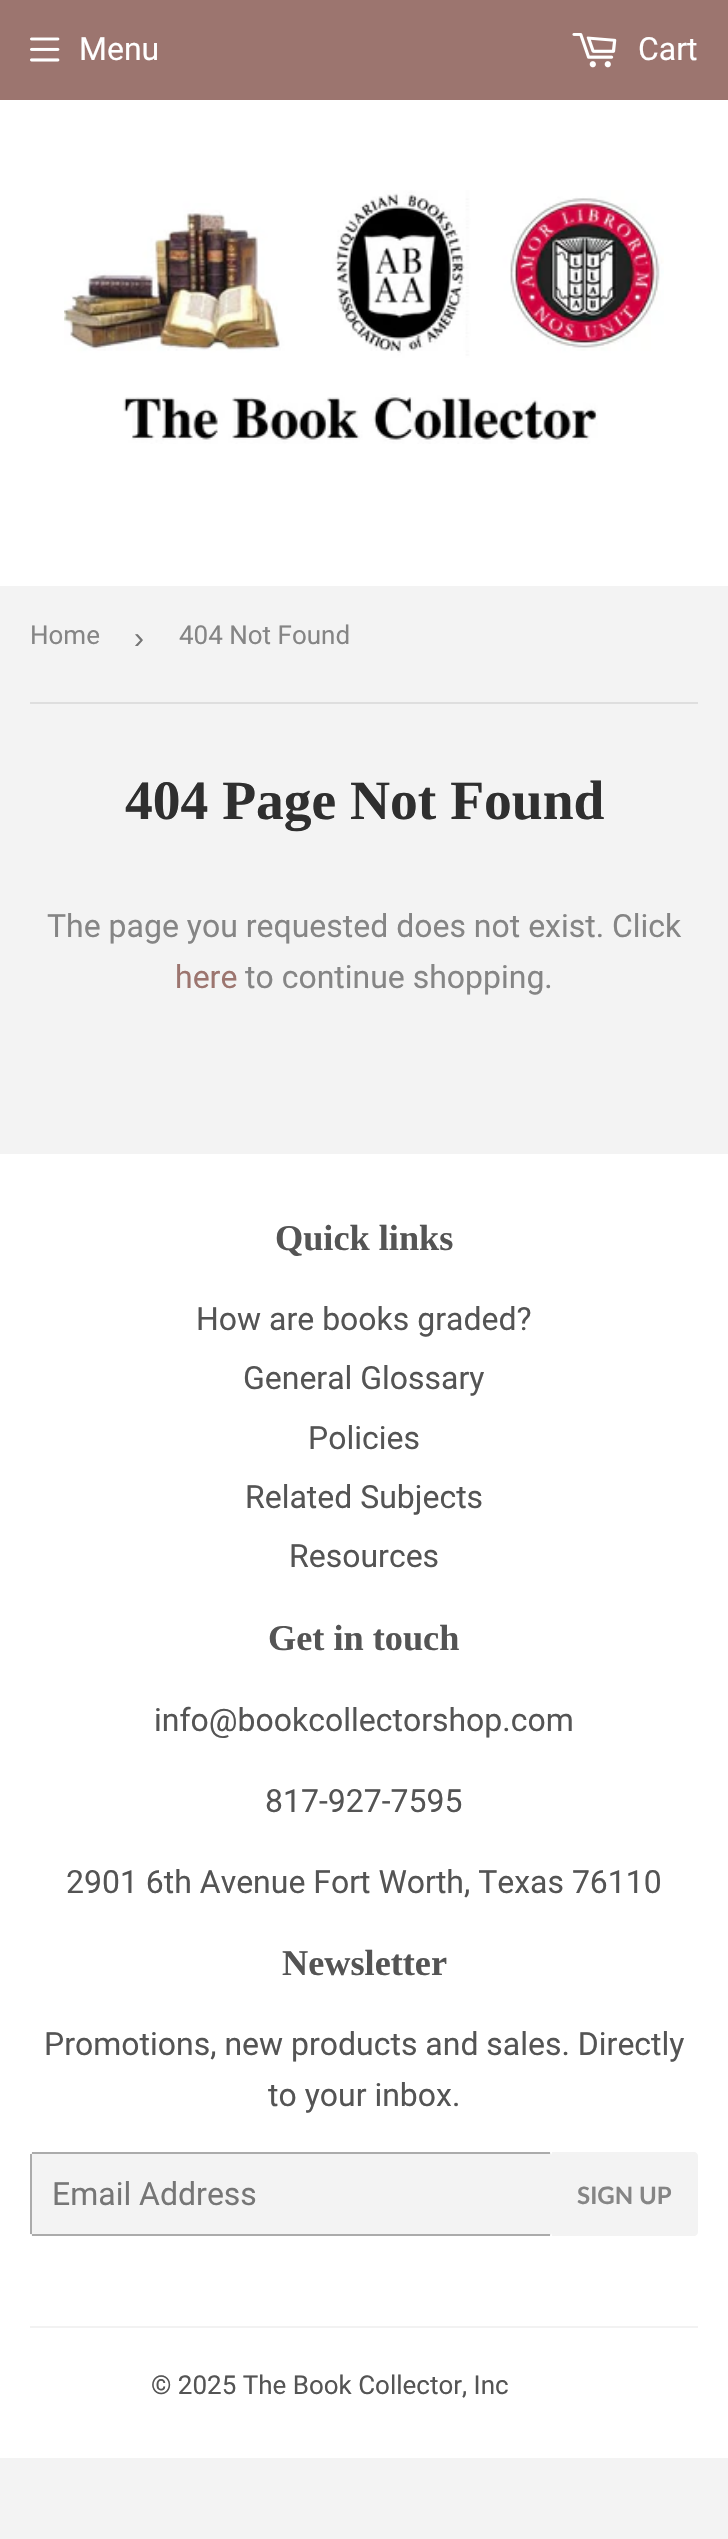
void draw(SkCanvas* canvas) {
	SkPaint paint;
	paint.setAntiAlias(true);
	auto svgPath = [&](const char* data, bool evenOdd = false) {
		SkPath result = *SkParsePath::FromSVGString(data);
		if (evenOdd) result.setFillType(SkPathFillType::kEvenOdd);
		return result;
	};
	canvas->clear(0xfff3f3f3);
	paint.setColor(0xff9c756f);
	canvas->drawRect(SkRect::MakeXYWH(0, 0, 728, 100), paint);
	canvas->drawImageRect(SkImages::DeferredFromEncodedData(SkData::MakeFromFileName("img1.png")), SkRect::MakeXYWH(30, 37, 30, 25), SkSamplingOptions());
	SkFont f1(fontMgr->matchFamilyStyle("Roboto", SkFontStyle::Normal()), 32);
	f1.setSubpixel(true);
	paint.setColor(0xffffffff);
	canvas->drawString("Menu", 79, 60, f1, paint);
	canvas->drawImageRect(SkImages::DeferredFromEncodedData(SkData::MakeFromFileName("img2.png")), SkRect::MakeXYWH(572, 33, 45, 35), SkSamplingOptions());
	canvas->drawString("Cart", 638, 60, f1, paint);
	canvas->drawRect(SkRect::MakeXYWH(0, 100, 728, 486), paint);
	canvas->drawImageRect(SkImages::DeferredFromEncodedData(SkData::MakeFromFileName("img3.png")), SkRect::MakeXYWH(64, 190, 600, 254), SkSamplingOptions());
	paint.setColor(0xffdedede);
	canvas->drawRect(SkRect::MakeXYWH(30, 702, 668, 2), paint);
	SkFont f2(fontMgr->matchFamilyStyle("Roboto", SkFontStyle::Normal()), 26);
	f2.setSubpixel(true);
	paint.setColor(0xff858585);
	canvas->drawString("Home", 30, 644, f2, paint);
	SkFont f3(fontMgr->matchFamilyStyle("Liberation Sans", SkFontStyle::Normal()), 30);
	f3.setSubpixel(true);
	paint.setColor(0xff767676);
	canvas->drawString("›", 134, 648, f3, paint);
	paint.setColor(0xff858585);
	canvas->drawString("404 Not Found", 179, 644, f2, paint);
	SkFont f4(fontMgr->matchFamilyStyle("Liberation Serif", SkFontStyle::Bold()), 55.5);
	f4.setSubpixel(true);
	paint.setColor(0xff2f2f2f);
	canvas->drawString("404 Page Not Found", 125, 819, f4, paint);
	paint.setColor(0xff858585);
	canvas->drawString("The page you requested does not exist. Click", 47, 937, f1, paint);
	paint.setColor(0xff9c756f);
	canvas->drawString("here", 175, 988, f1, paint);
	paint.setColor(0xff858585);
	canvas->drawString("to continue shopping.", 245, 988, f1, paint);
	paint.setColor(0xffffffff);
	canvas->drawRect(SkRect::MakeXYWH(0, 1154, 728, 1304), paint);
	SkFont f5(fontMgr->matchFamilyStyle("Liberation Serif", SkFontStyle::Bold()), 36.25);
	f5.setSubpixel(true);
	paint.setColor(0xff545454);
	canvas->drawString("Quick links", 275, 1250, f5, paint);
	canvas->drawString("How are books graded?", 196, 1330, f1, paint);
	canvas->drawString("General Glossary", 243, 1389, f1, paint);
	canvas->drawString("Policies", 308, 1449, f1, paint);
	canvas->drawString("Related Subjects", 245, 1508, f1, paint);
	canvas->drawString("Resources", 289, 1567, f1, paint);
	canvas->drawString("Get in touch", 268, 1650, f5, paint);
	canvas->drawString("info@bookcollectorshop.com", 154, 1731, f1, paint);
	canvas->drawString("817-927-7595", 265, 1812, f1, paint);
	canvas->drawString("2901 6th Avenue Fort Worth, Texas 76110", 66, 1893, f1, paint);
	canvas->drawString("Newsletter", 282, 1975, f5, paint);
	canvas->drawString("Promotions, new products and sales. Directly", 44, 2055, f1, paint);
	canvas->drawString("to your inbox.", 268, 2106, f1, paint);
	paint.setColor(0xfff3f3f3);
	canvas->drawRoundRect(SkRect::MakeXYWH(30, 2152, 522, 84), 4, 4, paint);
	paint.setColor(0xffababab);
	canvas->drawRect(SkRect::MakeXYWH(32, 2152, 518, 2), paint);
	canvas->drawRect(SkRect::MakeXYWH(32, 2234, 518, 2), paint);
	canvas->drawRect(SkRect::MakeXYWH(30, 2154, 2, 80), paint);
	paint.setColor(0xff767676);
	canvas->drawString("Email Address", 52, 2205, f1, paint);
	paint.setColor(0xfff3f3f3);
	canvas->drawPath(svgPath("M552 2152H694C696 2152 698 2154 698 2156V2232C698 2234 696 2236 694 2236H552Z"), paint);
	SkFont f6(fontMgr->matchFamilyStyle("Lato", SkFontStyle::Bold()), 24);
	f6.setSubpixel(true);
	paint.setColor(0xff858585);
	canvas->drawString("SIGN UP", 577, 2204, f6, paint);
	paint.setColor(0xfff2f2f2);
	canvas->drawRect(SkRect::MakeXYWH(30, 2326, 668, 2), paint);
	paint.setColor(0xff545454);
	canvas->drawString("© 2025 The Book Collector, Inc", 151, 2394, f2, paint);
}
